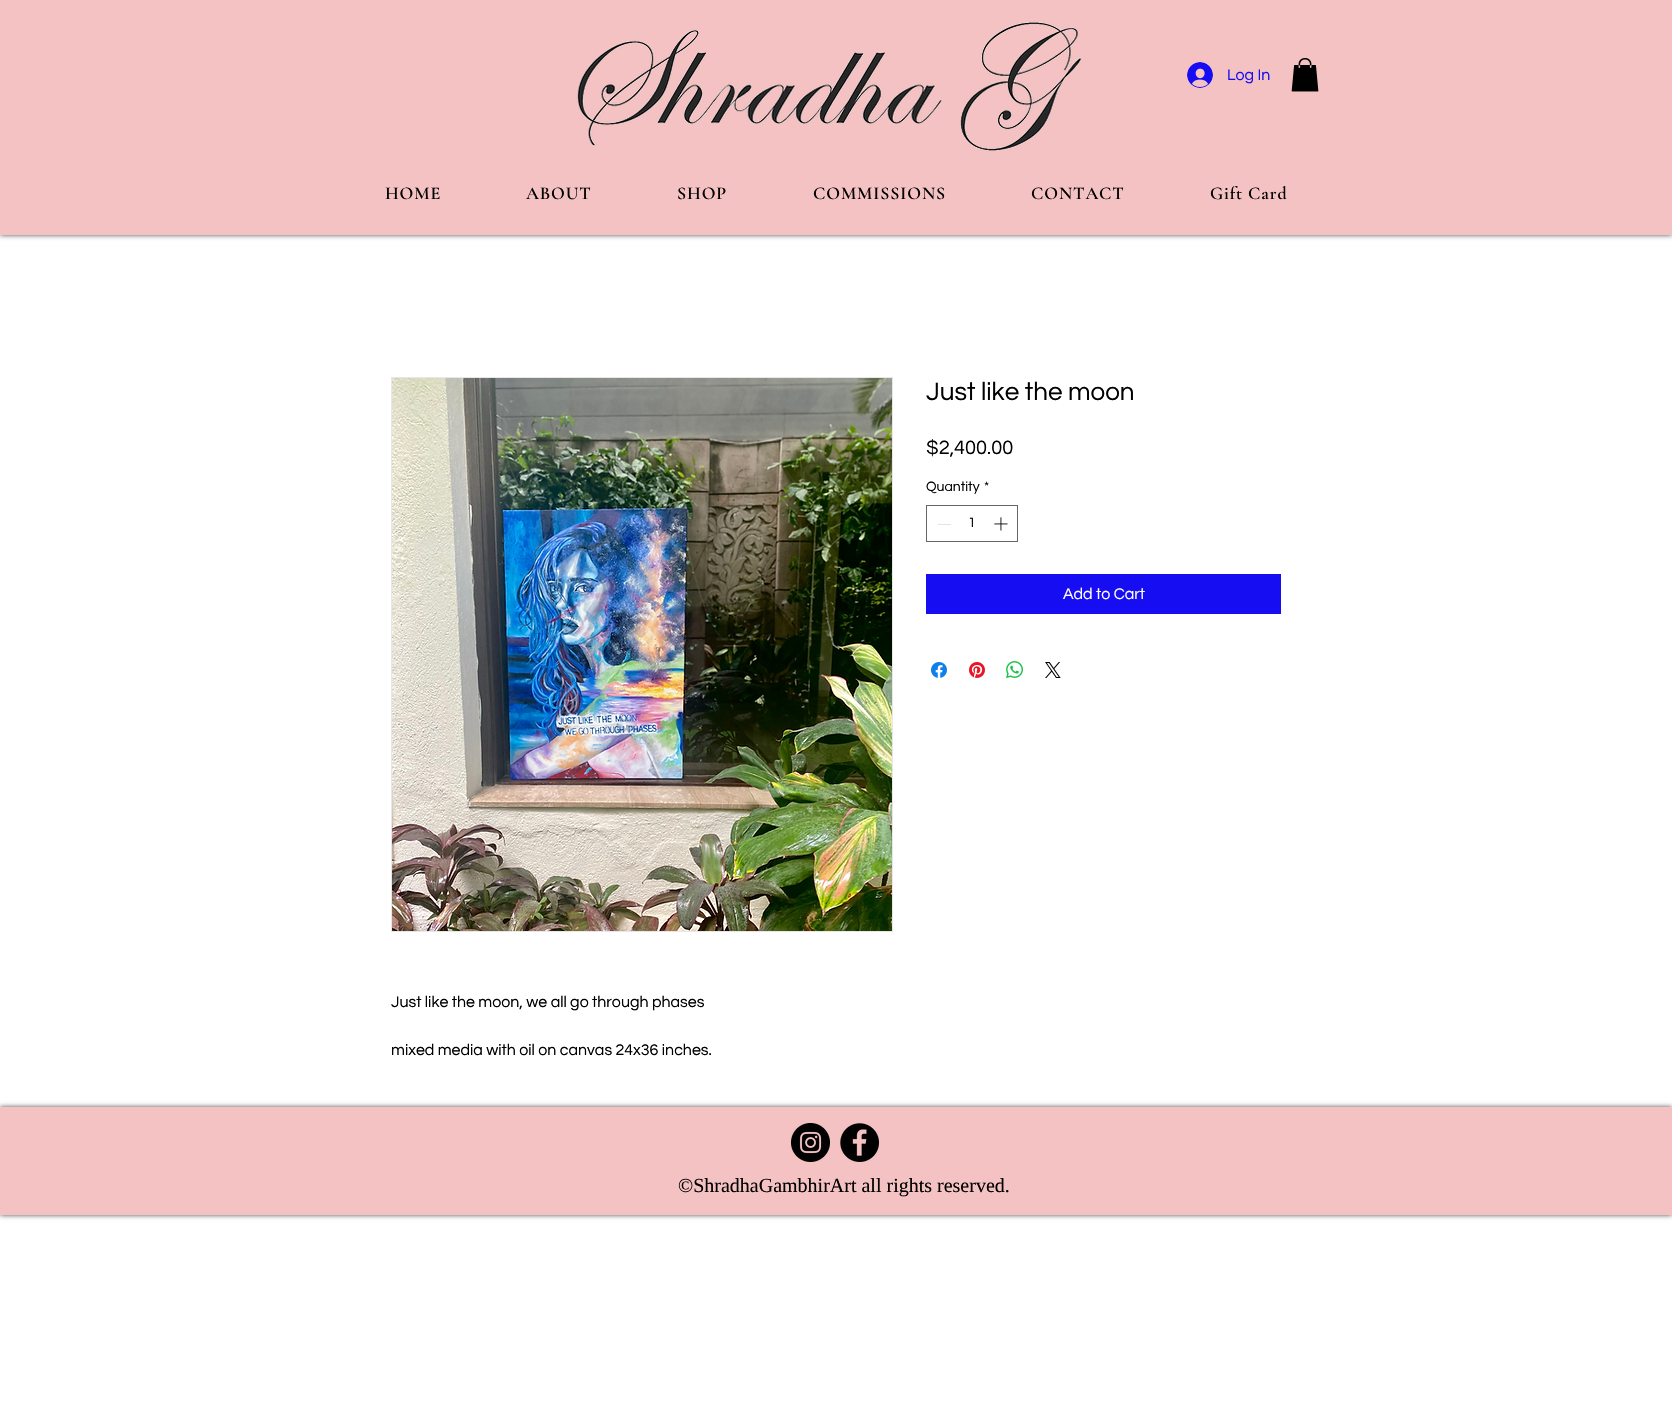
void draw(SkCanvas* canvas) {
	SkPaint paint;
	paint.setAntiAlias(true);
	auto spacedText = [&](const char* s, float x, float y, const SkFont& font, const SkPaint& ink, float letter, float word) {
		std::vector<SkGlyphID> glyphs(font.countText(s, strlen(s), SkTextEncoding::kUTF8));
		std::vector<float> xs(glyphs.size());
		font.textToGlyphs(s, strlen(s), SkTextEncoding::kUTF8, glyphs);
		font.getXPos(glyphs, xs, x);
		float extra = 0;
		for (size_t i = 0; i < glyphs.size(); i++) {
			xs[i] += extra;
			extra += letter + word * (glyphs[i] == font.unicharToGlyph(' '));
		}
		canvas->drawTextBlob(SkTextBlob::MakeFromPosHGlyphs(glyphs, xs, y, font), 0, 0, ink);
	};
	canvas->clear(0xffffffff);
	paint.setColor(0xb3000000);
	paint.setMaskFilter(SkMaskFilter::MakeBlur(kNormal_SkBlurStyle, 2.5));
	canvas->drawRect(SkRect::MakeXYWH(0, 0, 1672, 235), paint);
	paint.setMaskFilter(nullptr);
	paint.setColor(0xfff4c2c2);
	canvas->drawRect(SkRect::MakeXYWH(0, 0, 1672, 235), paint);
	canvas->drawImageRect(SkImages::DeferredFromEncodedData(SkData::MakeFromFileName("img1.png")), SkRect::MakeXYWH(577, 22, 505, 129), SkSamplingOptions());
	canvas->drawImageRect(SkImages::DeferredFromEncodedData(SkData::MakeFromFileName("img2.png")), SkRect::MakeXYWH(1187, 62, 26, 26), SkSamplingOptions());
	SkFont f1(fontMgr->matchFamilyStyle("Questrial", SkFontStyle::Normal()), 16);
	f1.setSubpixel(true);
	paint.setColor(0xff170df2);
	canvas->drawString("Log In", 1227, 80, f1, paint);
	canvas->drawImageRect(SkImages::DeferredFromEncodedData(SkData::MakeFromFileName("img3.png")), SkRect::MakeXYWH(1291, 58, 28, 34), SkSamplingOptions());
	SkFont f2(fontMgr->matchFamilyStyle("Cormorant Garamond", SkFontStyle(600, SkFontStyle::kNormal_Width, SkFontStyle::kUpright_Slant)), 18);
	f2.setSubpixel(true);
	paint.setColor(0xff000000);
	spacedText("HOME", 385, 199, f2, paint, 0.9, 0);
	spacedText("ABOUT", 526, 199, f2, paint, 0.9, 0);
	spacedText("SHOP", 677, 199, f2, paint, 0.9, 0);
	spacedText("COMMISSIONS", 813, 199, f2, paint, 0.9, 0);
	spacedText("CONTACT", 1031, 199, f2, paint, 0.9, 0);
	spacedText("Gift Card", 1210, 199, f2, paint, 0.9, 0);
	SkFont f3(fontMgr->matchFamilyStyle("Questrial", SkFontStyle::Normal()), 26);
	f3.setSubpixel(true);
	canvas->drawString("Just like the moon", 926, 400, f3, paint);
	SkFont f4(fontMgr->matchFamilyStyle("Questrial", SkFontStyle::Normal()), 20);
	f4.setSubpixel(true);
	canvas->drawString("$2,400.00", 926, 454, f4, paint);
	SkFont f5(fontMgr->matchFamilyStyle("Questrial", SkFontStyle::Normal()), 14);
	f5.setSubpixel(true);
	canvas->drawString("Quantity", 926, 491, f5, paint);
	canvas->drawString("*", 984, 491, f5, paint);
	paint.setStroke(true);
	paint.setStrokeWidth(1);
	paint.setColor(0xff666666);
	canvas->drawRect(SkRect::MakeXYWH(926.5, 505.5, 91, 36), paint);
	paint.setStroke(false);
	paint.setColor(0xffe3e3e3);
	canvas->drawRect(SkRect::MakeXYWH(938, 524, 13, 1), paint);
	paint.setColor(0xff000000);
	canvas->drawString("1", 968, 527, f5, paint);
	canvas->drawImageRect(SkImages::DeferredFromEncodedData(SkData::MakeFromFileName("img4.png")), SkRect::MakeXYWH(994, 517, 14, 14), SkSamplingOptions());
	paint.setColor(0xff170df2);
	canvas->drawRect(SkRect::MakeXYWH(926, 574, 355, 40), paint);
	paint.setColor(0xffffffff);
	canvas->drawString("Add to Cart", 1063, 599, f1, paint);
	canvas->drawImageRect(SkImages::DeferredFromEncodedData(SkData::MakeFromFileName("img5.png")), SkRect::MakeXYWH(931, 662, 16, 16), SkSamplingOptions());
	canvas->drawImageRect(SkImages::DeferredFromEncodedData(SkData::MakeFromFileName("img6.png")), SkRect::MakeXYWH(969, 662, 16, 16), SkSamplingOptions());
	canvas->drawImageRect(SkImages::DeferredFromEncodedData(SkData::MakeFromFileName("img7.png")), SkRect::MakeXYWH(1006, 661, 17, 17), SkSamplingOptions());
	canvas->drawImageRect(SkImages::DeferredFromEncodedData(SkData::MakeFromFileName("img8.png")), SkRect::MakeXYWH(1045, 662, 16, 16), SkSamplingOptions());
	paint.setStroke(true);
	paint.setColor(0xffe8e6e6);
	canvas->drawRect(SkRect::MakeXYWH(391.5, 377.5, 501, 554), paint);
	canvas->drawImageRect(SkImages::DeferredFromEncodedData(SkData::MakeFromFileName("img9.png")), SkRect::MakeXYWH(392, 378, 500, 553), SkSamplingOptions());
	paint.setStroke(false);
	paint.setColor(0xff000000);
	canvas->drawString("Just like the moon, we all go through phases", 391, 1007, f1, paint);
	canvas->drawString("mixed media with oil on canvas 24x36 inches.", 391, 1055, f1, paint);
	paint.setColor(0xb3000000);
	paint.setMaskFilter(SkMaskFilter::MakeBlur(kNormal_SkBlurStyle, 2.5));
	canvas->drawRect(SkRect::MakeXYWH(0, 1107, 1672, 108), paint);
	paint.setMaskFilter(nullptr);
	paint.setColor(0xfff4c2c2);
	canvas->drawRect(SkRect::MakeXYWH(0, 1107, 1672, 108), paint);
	canvas->drawImageRect(SkImages::DeferredFromEncodedData(SkData::MakeFromFileName("img10.png")), SkRect::MakeXYWH(791, 1123, 39, 39), SkSamplingOptions());
	canvas->drawImageRect(SkImages::DeferredFromEncodedData(SkData::MakeFromFileName("img11.png")), SkRect::MakeXYWH(840, 1123, 39, 39), SkSamplingOptions());
	SkFont f6(fontMgr->matchFamilyStyle("Liberation Serif", SkFontStyle::Normal()), 20);
	f6.setSubpixel(true);
	paint.setColor(0xff000000);
	canvas->drawString("©ShradhaGambhirArt all rights reserved.", 678, 1192, f6, paint);
}
